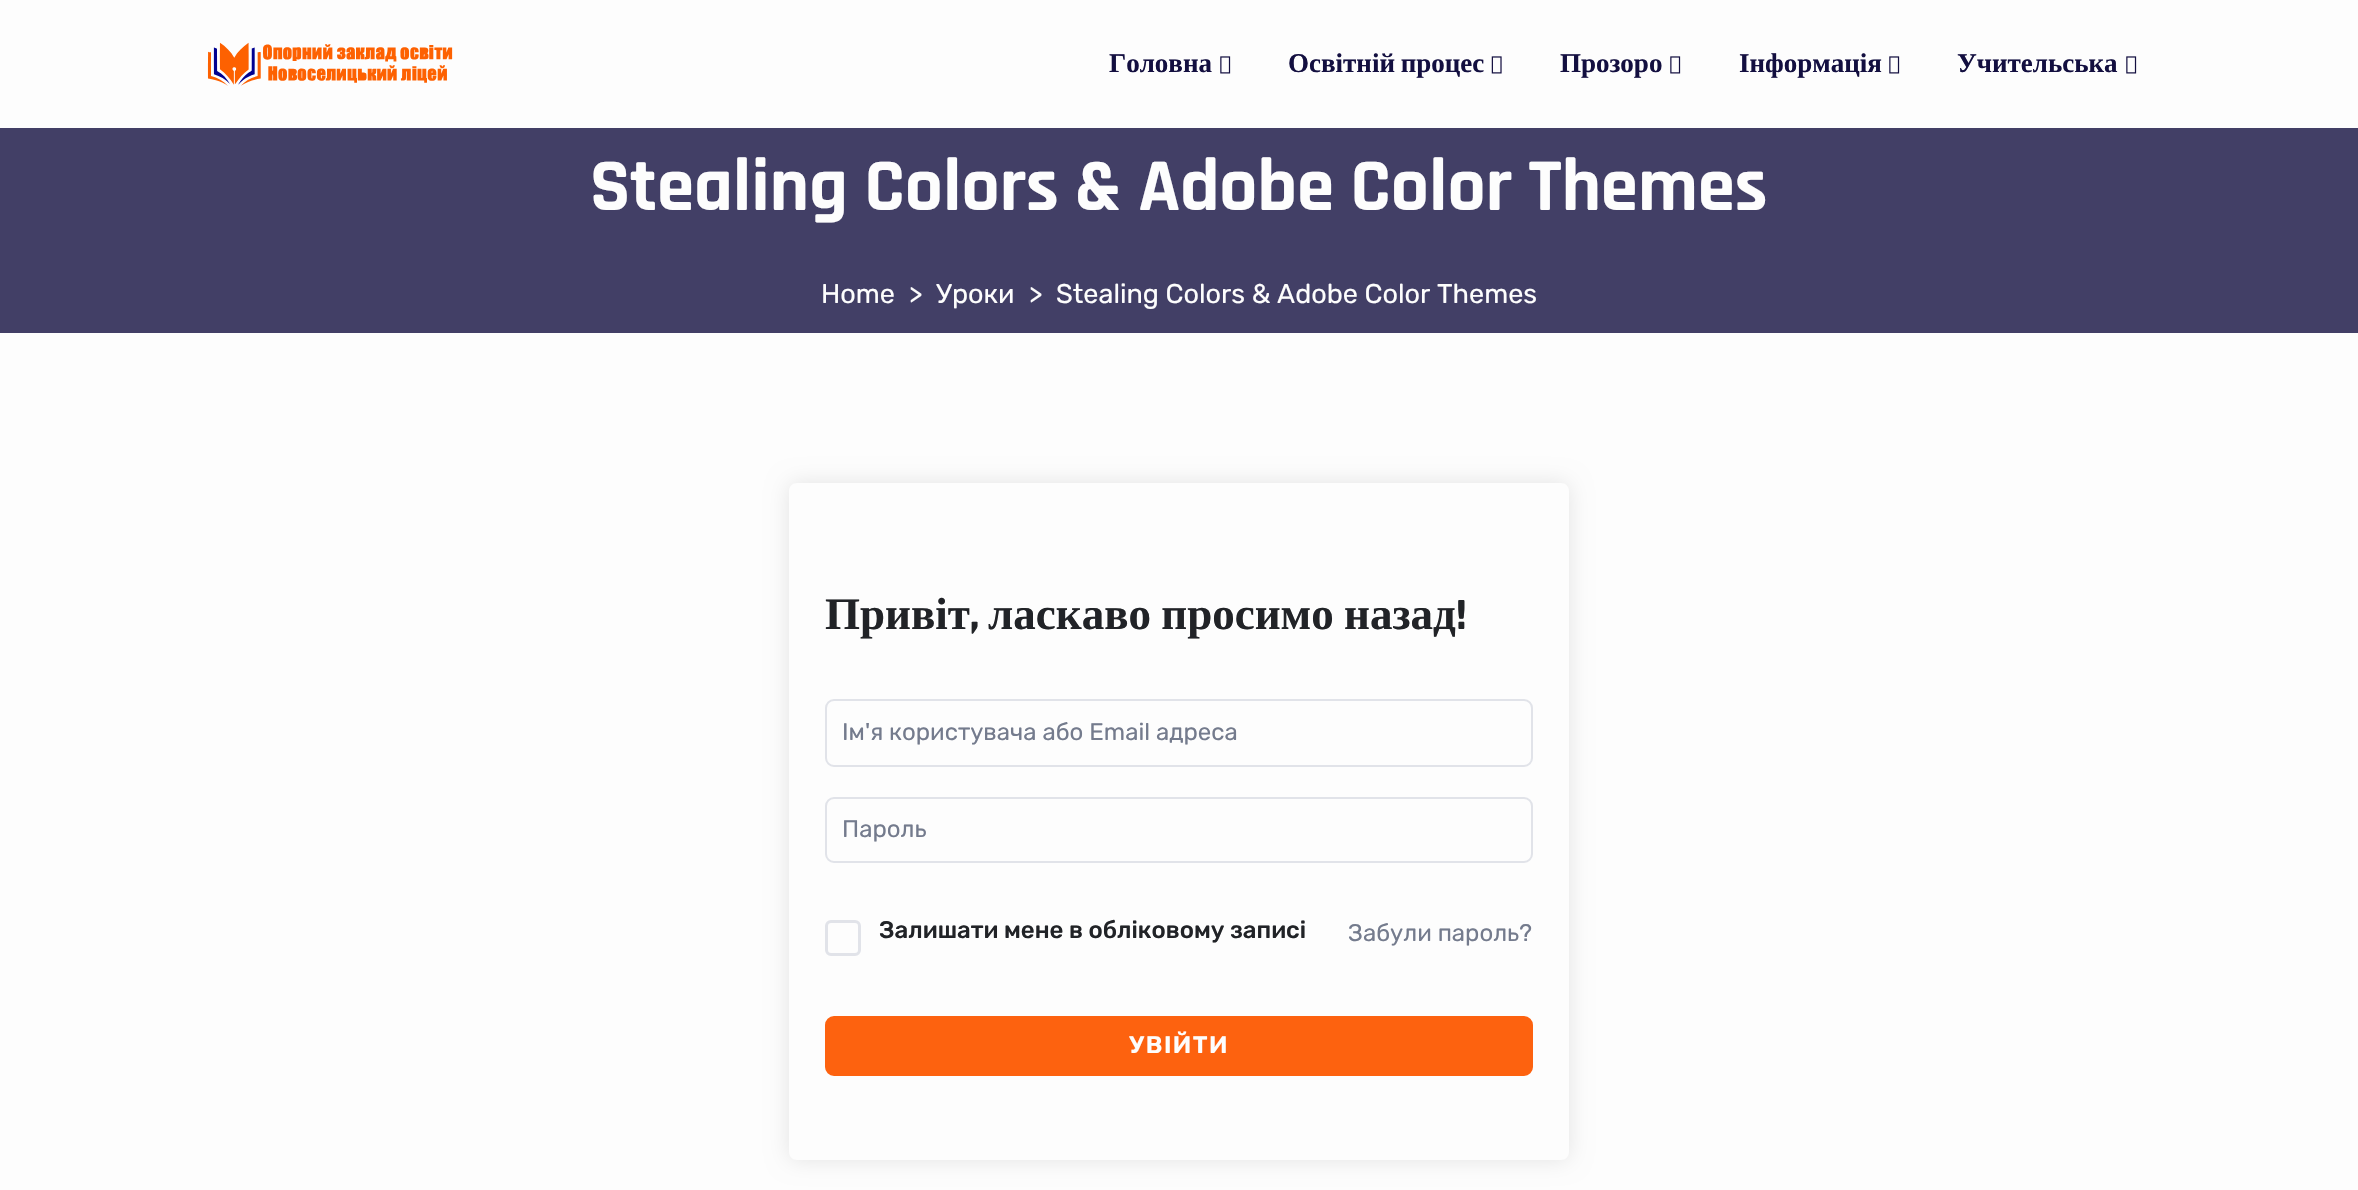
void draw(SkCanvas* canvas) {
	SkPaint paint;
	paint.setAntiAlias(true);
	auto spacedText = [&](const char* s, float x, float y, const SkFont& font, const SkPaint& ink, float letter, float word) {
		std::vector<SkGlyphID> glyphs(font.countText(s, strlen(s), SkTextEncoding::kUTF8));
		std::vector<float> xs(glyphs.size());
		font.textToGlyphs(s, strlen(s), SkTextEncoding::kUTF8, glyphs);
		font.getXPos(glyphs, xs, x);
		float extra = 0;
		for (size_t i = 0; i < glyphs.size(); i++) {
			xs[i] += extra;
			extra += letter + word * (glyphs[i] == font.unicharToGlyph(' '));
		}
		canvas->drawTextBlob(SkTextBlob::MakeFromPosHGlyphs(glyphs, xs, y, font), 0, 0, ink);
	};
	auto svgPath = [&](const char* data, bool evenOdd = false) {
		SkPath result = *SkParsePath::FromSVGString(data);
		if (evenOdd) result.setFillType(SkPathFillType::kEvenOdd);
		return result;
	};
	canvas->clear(0xfffdfdfd);
	paint.setColor(0xff423f66);
	canvas->drawRect(SkRect::MakeXYWH(0, 128, 2358, 205), paint);
	canvas->drawImageRect(SkImages::DeferredFromEncodedData(SkData::MakeFromFileName("img1.png")), SkRect::MakeXYWH(207, 42, 246, 44), SkSamplingOptions());
	SkFont f1(fontMgr->matchFamilyStyle("Liberation Serif", SkFontStyle::Bold()), 27);
	f1.setSubpixel(true);
	paint.setColor(0xff130f40);
	canvas->drawString("Головна", 1109, 72, f1, paint);
	canvas->drawImageRect(SkImages::DeferredFromEncodedData(SkData::MakeFromFileName("img2.png")), SkRect::MakeXYWH(1220, 56, 11, 18), SkSamplingOptions());
	spacedText("Освітній процес", 1288, 72, f1, paint, 0, -1);
	canvas->drawImageRect(SkImages::DeferredFromEncodedData(SkData::MakeFromFileName("img3.png")), SkRect::MakeXYWH(1491, 56, 11, 18), SkSamplingOptions());
	canvas->drawString("Прозоро", 1560, 72, f1, paint);
	canvas->drawImageRect(SkImages::DeferredFromEncodedData(SkData::MakeFromFileName("img2.png")), SkRect::MakeXYWH(1670, 56, 11, 18), SkSamplingOptions());
	canvas->drawString("Інформація", 1739, 72, f1, paint);
	canvas->drawImageRect(SkImages::DeferredFromEncodedData(SkData::MakeFromFileName("img2.png")), SkRect::MakeXYWH(1889, 56, 11, 18), SkSamplingOptions());
	canvas->drawString("Учительська", 1957, 72, f1, paint);
	canvas->drawImageRect(SkImages::DeferredFromEncodedData(SkData::MakeFromFileName("img2.png")), SkRect::MakeXYWH(2126, 56, 11, 18), SkSamplingOptions());
	SkFont f2(fontMgr->matchFamilyStyle("Rajdhani", SkFontStyle::Bold()), 75);
	f2.setSubpixel(true);
	paint.setColor(0xfffdfdfd);
	canvas->drawString("Stealing Colors & Adobe Color Themes", 590, 210, f2, paint);
	SkFont f3(fontMgr->matchFamilyStyle("Rubik", SkFontStyle(300, SkFontStyle::kNormal_Width, SkFontStyle::kUpright_Slant)), 27);
	f3.setSubpixel(true);
	canvas->drawString("Home", 821, 303, f3, paint);
	canvas->drawString(">", 909, 303, f3, paint);
	canvas->drawString("Уроки", 936, 303, f3, paint);
	canvas->drawString(">", 1029, 303, f3, paint);
	canvas->drawString("Stealing Colors & Adobe Color Themes", 1056, 303, f3, paint);
	canvas->save();
	canvas->clipPath(svgPath("M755 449H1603V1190H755ZM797 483H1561C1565.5 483 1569 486.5 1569 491V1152C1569 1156.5 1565.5 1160 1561 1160H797C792.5 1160 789 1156.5 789 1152V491C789 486.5 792.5 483 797 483Z", true), true);
	paint.setColor(0x1a000001);
	paint.setMaskFilter(SkMaskFilter::MakeBlur(kNormal_SkBlurStyle, 11));
	canvas->drawRoundRect(SkRect::MakeXYWH(789, 483, 780, 677), 8, 8, paint);
	paint.setMaskFilter(nullptr);
	canvas->restore();
	SkFont f4(fontMgr->matchFamilyStyle("Liberation Serif", SkFontStyle::Bold()), 45);
	f4.setSubpixel(true);
	paint.setColor(0xff212327);
	canvas->drawString("Привіт", 825, 629, f4, paint);
	SkFont f5(fontMgr->matchFamilyStyle("Rajdhani", SkFontStyle::Bold()), 45);
	f5.setSubpixel(true);
	canvas->drawString(",", 970, 629, f5, paint);
	spacedText("ласкаво просимо назад", 988, 629, f4, paint, 0, -1);
	canvas->drawString("!", 1456, 629, f5, paint);
	paint.setStroke(true);
	paint.setStrokeWidth(2);
	paint.setColor(0xffe1e3e9);
	canvas->drawRoundRect(SkRect::MakeXYWH(826, 700, 706, 66), 8, 8, paint);
	SkFont f6(fontMgr->matchFamilyStyle("Rubik", SkFontStyle(300, SkFontStyle::kNormal_Width, SkFontStyle::kUpright_Slant)), 24);
	f6.setSubpixel(true);
	paint.setStroke(false);
	paint.setColor(0xff747b8d);
	canvas->drawString("Ім'я користувача або Email адреса", 842, 740, f6, paint);
	paint.setStroke(true);
	paint.setColor(0xffe1e3e9);
	canvas->drawRoundRect(SkRect::MakeXYWH(826, 798, 706, 64), 8, 8, paint);
	paint.setStroke(false);
	paint.setColor(0xff747b8d);
	canvas->drawString("Пароль", 842, 837, f6, paint);
	paint.setStroke(true);
	paint.setStrokeWidth(3);
	paint.setColor(0xffe1e3e9);
	canvas->drawRoundRect(SkRect::MakeXYWH(826.5, 921.5, 33, 33), 4.5, 4.5, paint);
	SkFont f7(fontMgr->matchFamilyStyle("Rubik", SkFontStyle(500, SkFontStyle::kNormal_Width, SkFontStyle::kUpright_Slant)), 24);
	f7.setSubpixel(true);
	paint.setStroke(false);
	paint.setColor(0xff212327);
	canvas->drawString("Залишати мене в обліковому записі", 879, 938, f7, paint);
	paint.setColor(0xff747b8d);
	canvas->drawString("Забули пароль?", 1348, 941, f6, paint);
	paint.setColor(0xfffd620f);
	canvas->drawRoundRect(SkRect::MakeXYWH(826, 1017, 706, 58), 8, 8, paint);
	paint.setStroke(true);
	paint.setStrokeWidth(2);
	canvas->drawRoundRect(SkRect::MakeXYWH(826, 1017, 706, 58), 8, 8, paint);
	SkFont f8(fontMgr->matchFamilyStyle("Rubik", SkFontStyle(600, SkFontStyle::kNormal_Width, SkFontStyle::kUpright_Slant)), 24);
	f8.setSubpixel(true);
	paint.setStroke(false);
	paint.setColor(0xfffdfdfd);
	spacedText("УВІЙТИ", 1129, 1053, f8, paint, 1.5, 0);
}
